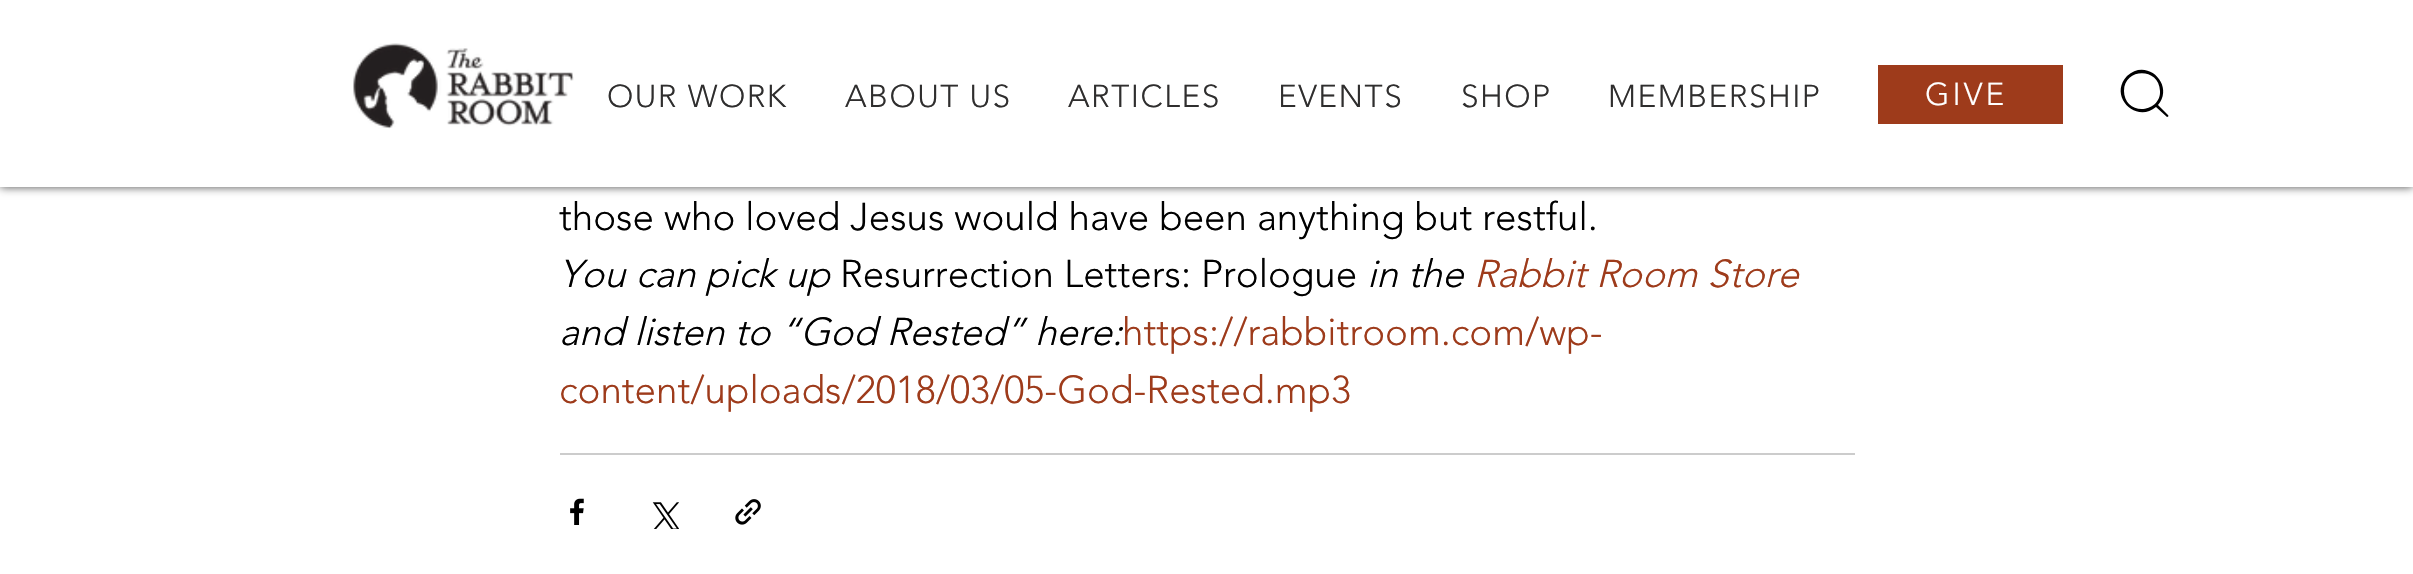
void draw(SkCanvas* canvas) {
	SkPaint paint;
	paint.setAntiAlias(true);
	auto spacedText = [&](const char* s, float x, float y, const SkFont& font, const SkPaint& ink, float letter, float word) {
		std::vector<SkGlyphID> glyphs(font.countText(s, strlen(s), SkTextEncoding::kUTF8));
		std::vector<float> xs(glyphs.size());
		font.textToGlyphs(s, strlen(s), SkTextEncoding::kUTF8, glyphs);
		font.getXPos(glyphs, xs, x);
		float extra = 0;
		for (size_t i = 0; i < glyphs.size(); i++) {
			xs[i] += extra;
			extra += letter + word * (glyphs[i] == font.unicharToGlyph(' '));
		}
		canvas->drawTextBlob(SkTextBlob::MakeFromPosHGlyphs(glyphs, xs, y, font), 0, 0, ink);
	};
	auto svgPath = [&](const char* data, bool evenOdd = false) {
		SkPath result = *SkParsePath::FromSVGString(data);
		if (evenOdd) result.setFillType(SkPathFillType::kEvenOdd);
		return result;
	};
	canvas->clear(0xffffffff);
	paint.setColor(0xb3000000);
	paint.setMaskFilter(SkMaskFilter::MakeBlur(kNormal_SkBlurStyle, 4.5));
	canvas->drawRect(SkRect::MakeXYWH(0, 0, 2413, 187), paint);
	paint.setMaskFilter(nullptr);
	paint.setColor(0xffffffff);
	canvas->drawRect(SkRect::MakeXYWH(0, 0, 2413, 187), paint);
	canvas->drawImageRect(SkImages::DeferredFromEncodedData(SkData::MakeFromFileName("img1.png")), SkRect::MakeXYWH(353, 43, 221, 86), SkSamplingOptions());
	SkFont f1(fontMgr->matchFamilyStyle("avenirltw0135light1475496", SkFontStyle(300, SkFontStyle::kNormal_Width, SkFontStyle::kUpright_Slant)), 31.5);
	f1.setSubpixel(true);
	paint.setColor(0xff2f2e2e);
	spacedText("OUR WORK", 607, 107, f1, paint, 1.5, 0);
	spacedText("ABOUT US", 845, 107, f1, paint, 1.5, 0);
	spacedText("ARTICLES", 1068, 107, f1, paint, 1.5, 0);
	spacedText("EVENTS", 1278, 107, f1, paint, 1.5, 0);
	spacedText("SHOP", 1461, 107, f1, paint, 1.5, 0);
	spacedText("MEMBERSHIP", 1608, 107, f1, paint, 1.5, 0);
	paint.setColor(0xff9e3b1b);
	canvas->drawRect(SkRect::MakeXYWH(1878, 65, 185, 59), paint);
	paint.setColor(0xffffffff);
	spacedText("GIVE", 1925, 105, f1, paint, 3, 0);
	paint.setColor(0xff000001);
	canvas->drawPath(svgPath("M2168 115L2158 105C2175 85 2147 57 2127 76C2108 96 2136 124 2156 107L2167 117C2168 117 2169 116 2168 115ZM2124 91C2124 68 2159 67 2160 91C2161 107 2140 115 2129 104C2126 101 2124 96 2124 91Z"), paint);
	SkFont f2(fontMgr->matchFamilyStyle("avenirltw0135light1475496", SkFontStyle(300, SkFontStyle::kNormal_Width, SkFontStyle::kUpright_Slant)), 38.5);
	f2.setSubpixel(true);
	paint.setColor(0xff000000);
	canvas->drawString("those who loved Jesus would have been anything but restful.", 559, 230, f2, paint);
	SkFont f3(fontMgr->matchFamilyStyle("avenirltw0135light1475496", SkFontStyle(300, SkFontStyle::kNormal_Width, SkFontStyle::kItalic_Slant)), 38.5);
	f3.setSubpixel(true);
	canvas->drawString("You can pick up", 559, 287, f3, paint);
	canvas->drawString("Resurrection Letters: Prologue", 840, 287, f2, paint);
	canvas->drawString("in the", 1367, 287, f3, paint);
	paint.setColor(0xff9e3b1b);
	canvas->drawString("Rabbit Room Store", 1474, 287, f3, paint);
	paint.setColor(0xff000000);
	canvas->drawString("and listen to “God Rested” here:", 559, 345, f3, paint);
	paint.setColor(0xff9e3b1b);
	canvas->drawString("https://rabbitroom.com/wp-", 1122, 345, f2, paint);
	canvas->drawString("content/uploads/2018/03/05-God-Rested.mp3", 559, 403, f2, paint);
	paint.setColor(0xffcccccc);
	canvas->drawRect(SkRect::MakeXYWH(560, 453, 1295, 2), paint);
	canvas->drawImageRect(SkImages::DeferredFromEncodedData(SkData::MakeFromFileName("img2.png")), SkRect::MakeXYWH(570, 498, 14, 27), SkSamplingOptions());
	canvas->drawImageRect(SkImages::DeferredFromEncodedData(SkData::MakeFromFileName("img3.png")), SkRect::MakeXYWH(652, 502, 27, 27), SkSamplingOptions());
	canvas->drawImageRect(SkImages::DeferredFromEncodedData(SkData::MakeFromFileName("img4.png")), SkRect::MakeXYWH(735, 499, 26, 26), SkSamplingOptions());
}
